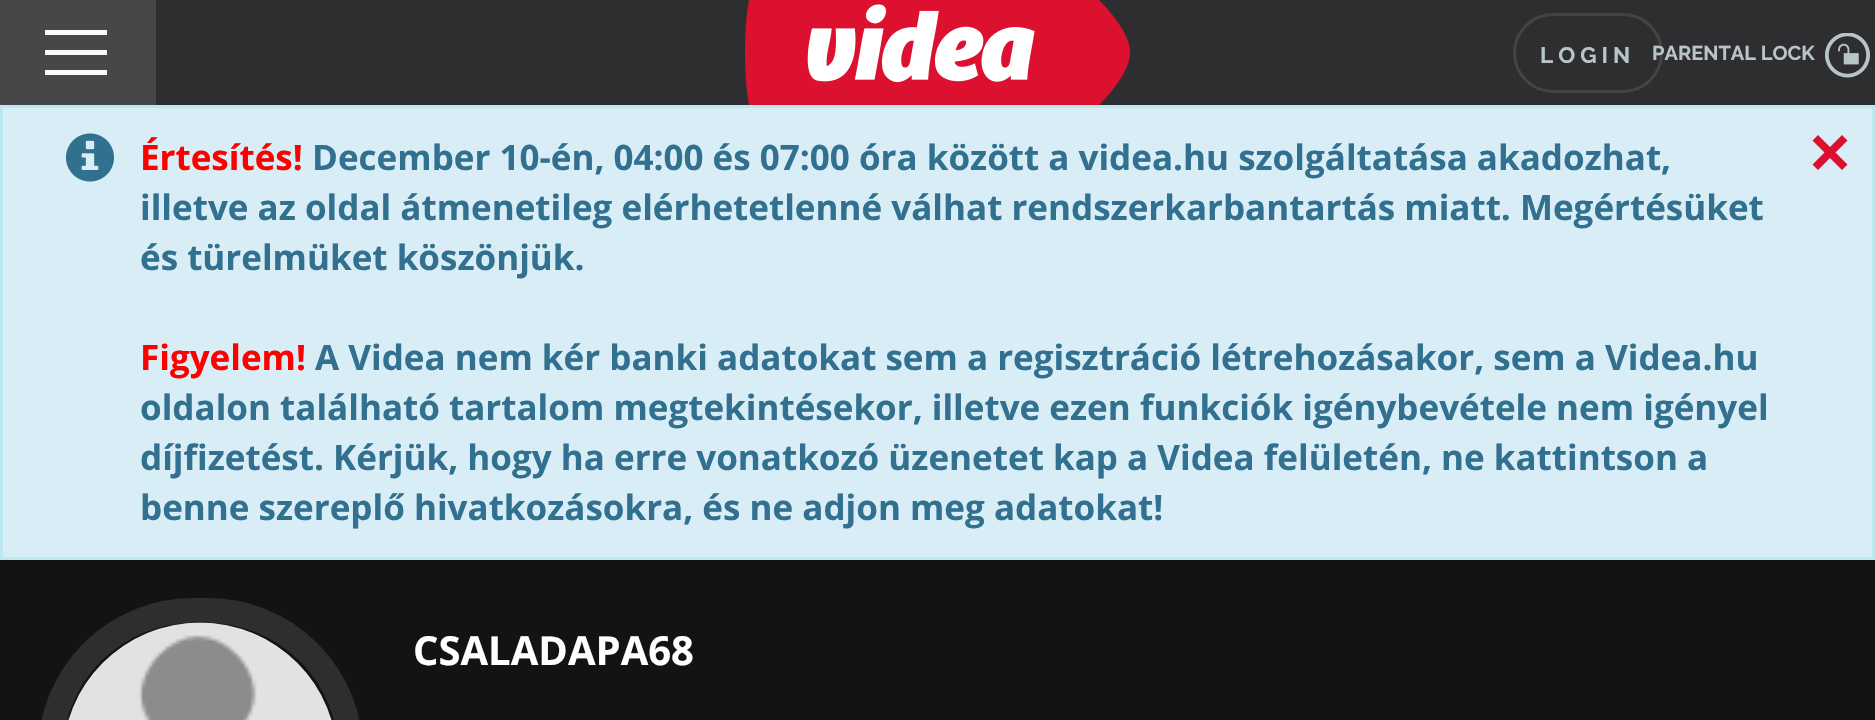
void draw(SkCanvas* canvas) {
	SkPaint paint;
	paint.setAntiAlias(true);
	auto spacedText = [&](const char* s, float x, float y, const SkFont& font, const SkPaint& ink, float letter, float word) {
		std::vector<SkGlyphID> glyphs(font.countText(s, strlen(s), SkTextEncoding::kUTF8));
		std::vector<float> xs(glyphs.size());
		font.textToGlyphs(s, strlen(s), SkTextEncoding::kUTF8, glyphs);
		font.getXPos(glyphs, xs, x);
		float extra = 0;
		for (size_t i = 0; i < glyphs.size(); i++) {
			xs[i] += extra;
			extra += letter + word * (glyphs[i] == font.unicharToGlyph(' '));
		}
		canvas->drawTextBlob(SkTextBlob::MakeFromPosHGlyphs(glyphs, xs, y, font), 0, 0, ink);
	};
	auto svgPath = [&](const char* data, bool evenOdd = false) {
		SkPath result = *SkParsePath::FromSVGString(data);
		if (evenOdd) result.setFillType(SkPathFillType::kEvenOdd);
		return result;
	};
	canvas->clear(0xffd9edf7);
	paint.setColor(0xff2e2e30);
	canvas->drawRect(SkRect::MakeXYWH(156, 0, 1719, 105), paint);
	canvas->drawImageRect(SkImages::DeferredFromEncodedData(SkData::MakeFromFileName("img1.png")), SkRect::MakeXYWH(745, 0, 385, 105), SkSamplingOptions());
	paint.setColor(0xff47474a);
	canvas->drawRect(SkRect::MakeXYWH(0, 0, 153, 105), paint);
	paint.setColor(0xff48484a);
	canvas->drawRect(SkRect::MakeXYWH(153, 0, 3, 105), paint);
	paint.setColor(0xfff9f9f9);
	canvas->drawPath(svgPath("M45 70V75H107V70ZM45 50V55H107V50ZM45 30V35H107V30Z"), paint);
	paint.setStroke(true);
	paint.setStrokeWidth(3);
	paint.setColor(0xff444444);
	canvas->drawRoundRect(SkRect::MakeXYWH(1514.5, 14.5, 147, 77), 38.5, 38.5, paint);
	SkFont f1(fontMgr->matchFamilyStyle("Raleway", SkFontStyle::Bold()), 22.5);
	f1.setSubpixel(true);
	paint.setStroke(false);
	paint.setColor(0xffb8c5c6);
	spacedText("LOGIN", 1540, 63, f1, paint, 5, 0);
	SkFont f2(fontMgr->matchFamilyStyle("Raleway", SkFontStyle::Bold()), 20);
	f2.setSubpixel(true);
	canvas->drawString("PARENTAL LOCK", 1652, 60, f2, paint);
	canvas->drawImageRect(SkImages::DeferredFromEncodedData(SkData::MakeFromFileName("img2.png")), SkRect::MakeXYWH(1825, 33, 45, 45), SkSamplingOptions());
	paint.setStroke(true);
	paint.setColor(0xffbce8f1);
	canvas->drawRect(SkRect::MakeXYWH(1.5, 106.5, 1872, 452), paint);
	canvas->drawImageRect(SkImages::DeferredFromEncodedData(SkData::MakeFromFileName("img3.png")), SkRect::MakeXYWH(65, 133, 50, 49), SkSamplingOptions());
	SkFont f3(fontMgr->matchFamilyStyle("Open Sans", SkFontStyle::Bold()), 35);
	f3.setSubpixel(true);
	paint.setStroke(false);
	paint.setColor(0xffff0000);
	canvas->drawString("Értesítés!", 140, 170, f3, paint);
	paint.setColor(0xff31708f);
	canvas->drawString("December 10-én, 04:00 és 07:00 óra között a videa.hu szolgáltatása akadozhat,", 312, 170, f3, paint);
	canvas->drawString("illetve az oldal átmenetileg elérhetetlenné válhat rendszerkarbantartás miatt. Megértésüket", 140, 220, f3, paint);
	canvas->drawString("és türelmüket köszönjük.", 140, 270, f3, paint);
	paint.setColor(0xffff0000);
	canvas->drawString("Figyelem!", 140, 370, f3, paint);
	paint.setColor(0xff31708f);
	canvas->drawString("A Videa nem kér banki adatokat sem a regisztráció létrehozásakor, sem a Videa.hu", 315, 370, f3, paint);
	canvas->drawString("oldalon található tartalom megtekintésekor, illetve ezen funkciók igénybevétele nem igényel", 140, 420, f3, paint);
	canvas->drawString("díjfizetést. Kérjük, hogy ha erre vonatkozó üzenetet kap a Videa felületén, ne kattintson a", 140, 470, f3, paint);
	canvas->drawString("benne szereplő hivatkozásokra, és ne adjon meg adatokat!", 140, 520, f3, paint);
	paint.setColor(0xffdc102e);
	canvas->drawPath(svgPath("M1835.5 152.5L1847.5 164.5L1842 170L1830 158L1818 170L1812.5 164.5L1824.5 152.5L1812.5 140.5L1818 135L1830 147L1842 135L1847.5 140.5Z"), paint);
	paint.setColor(0xff131313);
	canvas->drawRect(SkRect::MakeXYWH(0, 560, 1875, 160), paint);
	paint.setStroke(true);
	paint.setStrokeWidth(25);
	paint.setColor(0xff2e2e30);
	canvas->drawRoundRect(SkRect::MakeXYWH(50.5, 610.5, 300, 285), 150, 150, paint);
	canvas->drawImageRect(SkImages::DeferredFromEncodedData(SkData::MakeFromFileName("img4.png")), SkRect::MakeXYWH(68, 622, 264, 98), SkSamplingOptions());
	SkFont f4(fontMgr->matchFamilyStyle("Open Sans", SkFontStyle::Bold()), 40);
	f4.setSubpixel(true);
	paint.setStroke(false);
	paint.setColor(0xffffffff);
	canvas->drawString("CSALADAPA68", 413, 665, f4, paint);
}
